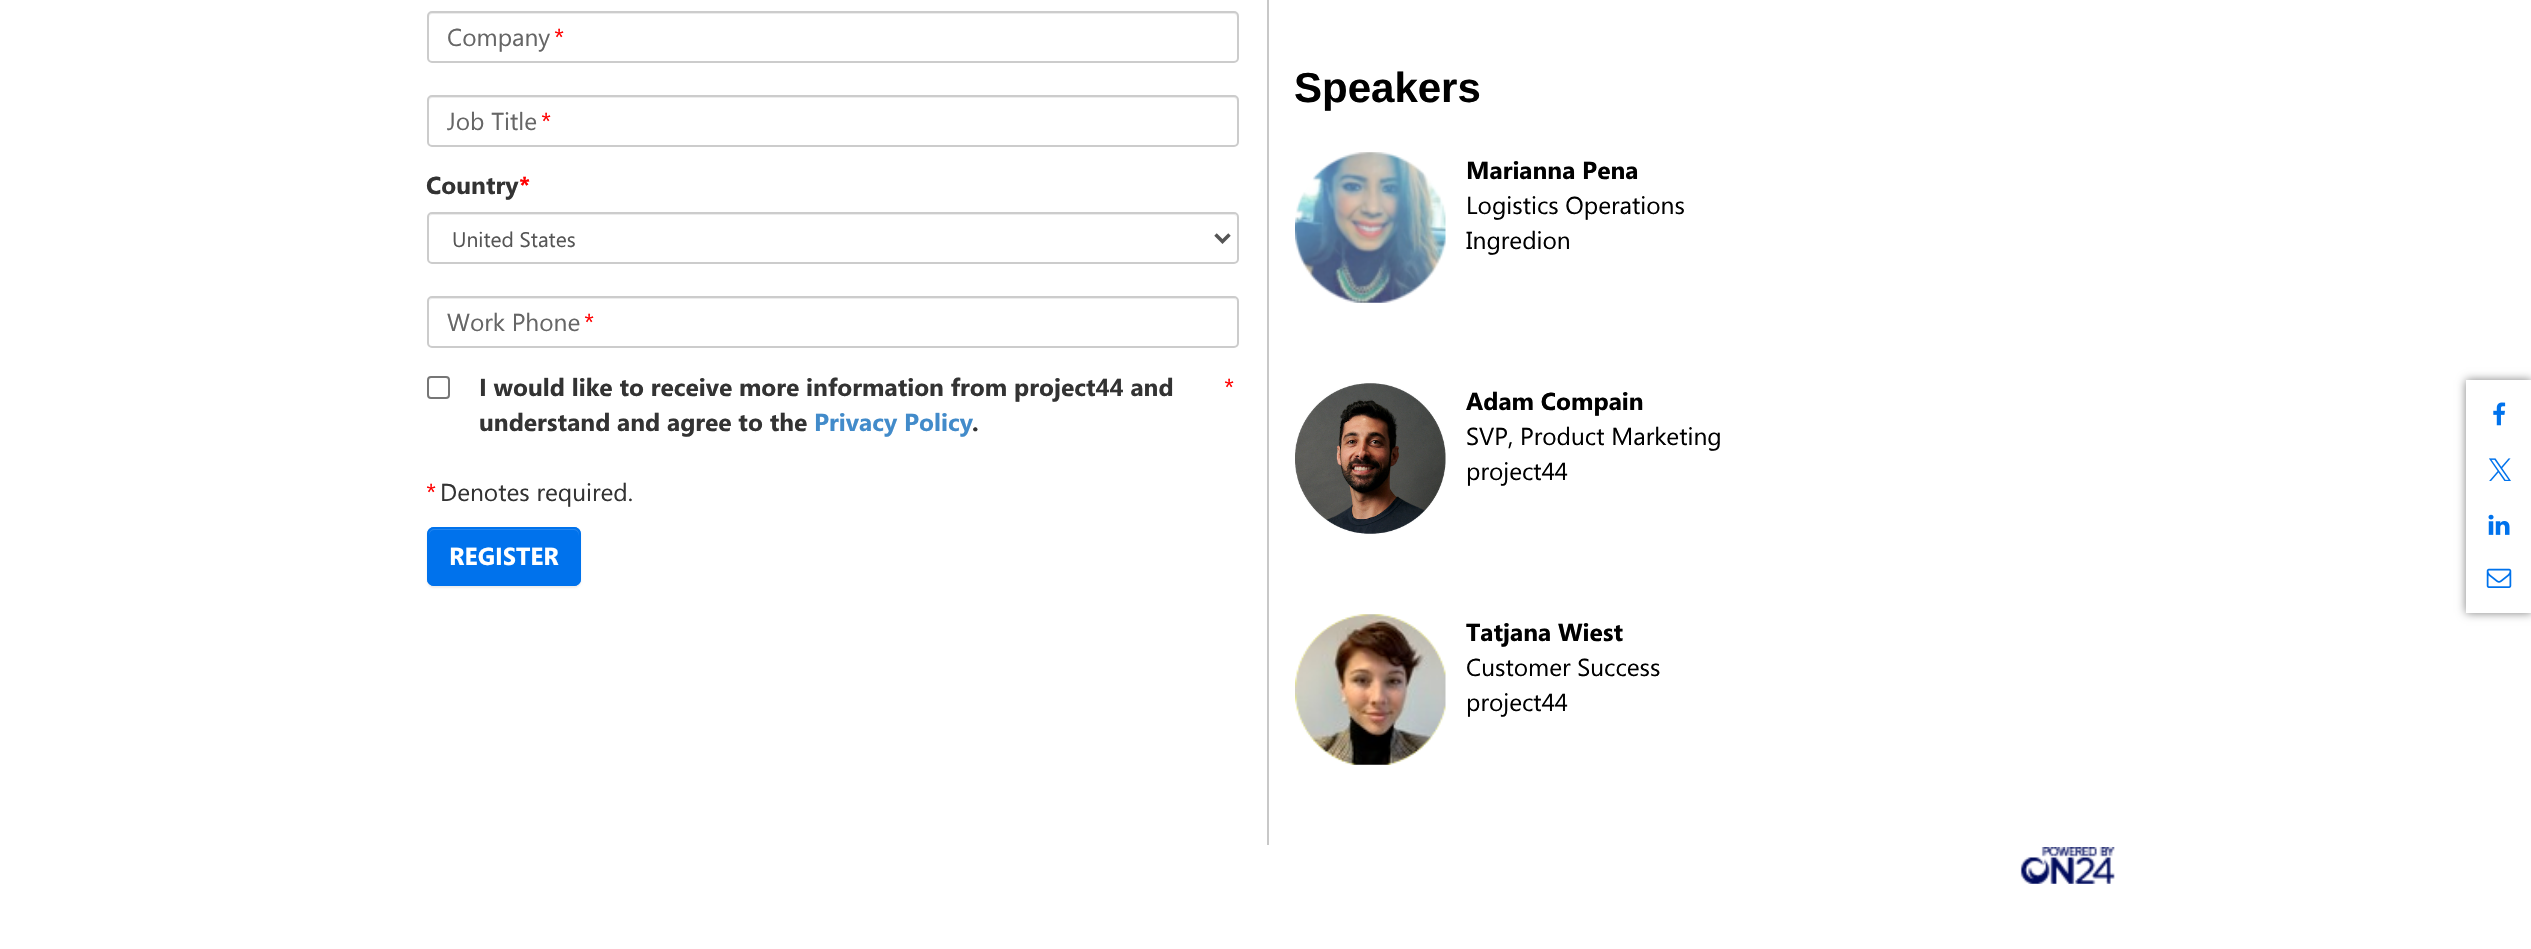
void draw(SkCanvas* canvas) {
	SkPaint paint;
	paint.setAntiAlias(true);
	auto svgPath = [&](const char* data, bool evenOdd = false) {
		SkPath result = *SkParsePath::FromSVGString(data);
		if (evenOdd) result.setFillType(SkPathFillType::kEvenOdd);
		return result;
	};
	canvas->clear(0xffffffff);
	paint.setColor(0xffececec);
	canvas->drawPath(svgPath("M432 14H1234C1236 14 1237 16 1237 18V16C1237 14 1235 12 1233 12H433C431 12 429 14 429 16V18C429 16 430 14 432 14Z"), paint);
	paint.setStroke(true);
	paint.setStrokeWidth(2);
	paint.setColor(0xffcccccc);
	canvas->drawRoundRect(SkRect::MakeXYWH(428, 12, 810, 50), 4, 4, paint);
	SkFont f1(fontMgr->matchFamilyStyle("Segoe UI", SkFontStyle::Normal()), 24.5);
	f1.setSubpixel(true);
	paint.setStroke(false);
	paint.setColor(0xff666666);
	canvas->drawString("Company", 447, 46, f1, paint);
	paint.setColor(0xffff0000);
	canvas->drawString("*", 554, 46, f1, paint);
	paint.setColor(0xffececec);
	canvas->drawPath(svgPath("M432 98H1234C1236 98 1237 100 1237 102V100C1237 98 1235 96 1233 96H433C431 96 429 98 429 100V102C429 100 430 98 432 98Z"), paint);
	paint.setStroke(true);
	paint.setColor(0xffcccccc);
	canvas->drawRoundRect(SkRect::MakeXYWH(428, 96, 810, 50), 4, 4, paint);
	paint.setStroke(false);
	paint.setColor(0xff666666);
	canvas->drawString("Job Title", 447, 130, f1, paint);
	paint.setColor(0xffff0000);
	canvas->drawString("*", 541, 130, f1, paint);
	SkFont f2(fontMgr->matchFamilyStyle("Segoe UI", SkFontStyle::Bold()), 24.5);
	f2.setSubpixel(true);
	paint.setColor(0xff333333);
	canvas->drawString("Country", 426, 194, f2, paint);
	paint.setColor(0xffff0000);
	canvas->drawString("*", 519, 194, f2, paint);
	paint.setColor(0xffececec);
	canvas->drawPath(svgPath("M432 215H1234C1236 215 1237 217 1237 219C1237 216 1236 214 1233 214H433C430 214 429 216 429 219C429 217 430 215 432 215Z"), paint);
	paint.setStroke(true);
	paint.setColor(0xffcccccc);
	canvas->drawRoundRect(SkRect::MakeXYWH(428, 213, 810, 50), 4, 4, paint);
	paint.setStrokeWidth(3.5);
	paint.setColor(0xff555555);
	canvas->drawPath(svgPath("M1215.5 234.5L1222.5 241.5L1229.5 234.5"), paint);
	SkFont f3(fontMgr->matchFamilyStyle("Segoe UI", SkFontStyle::Normal()), 21);
	f3.setSubpixel(true);
	paint.setStroke(false);
	canvas->drawString("United States", 452, 247, f3, paint);
	paint.setColor(0xffececec);
	canvas->drawPath(svgPath("M432 299H1234C1236 299 1237 301 1237 303C1237 300 1236 298 1233 298H433C430 298 429 300 429 303C429 301 430 299 432 299Z"), paint);
	paint.setStroke(true);
	paint.setStrokeWidth(2);
	paint.setColor(0xffcccccc);
	canvas->drawRoundRect(SkRect::MakeXYWH(428, 297, 810, 50), 4, 4, paint);
	paint.setStroke(false);
	paint.setColor(0xff666666);
	canvas->drawString("Work Phone", 447, 331, f1, paint);
	paint.setColor(0xffff0000);
	canvas->drawString("*", 584, 331, f1, paint);
	paint.setStroke(true);
	paint.setColor(0xff767676);
	canvas->drawRoundRect(SkRect::MakeXYWH(428, 377, 21, 21), 3, 3, paint);
	paint.setStroke(false);
	paint.setColor(0xff333333);
	canvas->drawString("I would like to receive more information from project44 and", 479, 396, f2, paint);
	canvas->drawString("understand and agree to the", 479, 431, f2, paint);
	paint.setColor(0xff428bca);
	canvas->drawString("Privacy Policy", 814, 431, f2, paint);
	paint.setColor(0xff333333);
	canvas->drawString(".", 972, 431, f2, paint);
	paint.setColor(0xffff0000);
	canvas->drawString("*", 1224, 396, f1, paint);
	canvas->drawString("*", 426, 501, f1, paint);
	paint.setColor(0xff333333);
	canvas->drawString("Denotes required.", 440, 501, f1, paint);
	paint.setColor(0x12000000);
	paint.setMaskFilter(SkMaskFilter::MakeBlur(kNormal_SkBlurStyle, 1));
	canvas->drawRoundRect(SkRect::MakeXYWH(427, 529, 154, 59), 7, 7, paint);
	paint.setMaskFilter(nullptr);
	paint.setColor(0xff0072ec);
	canvas->drawRoundRect(SkRect::MakeXYWH(427, 527, 154, 59), 7, 7, paint);
	paint.setColor(0xff2687ef);
	canvas->drawPath(svgPath("M434 530H574C577 530 579 533 579 536V534C579 531 577 529 574 529H434C431 529 429 531 429 534V536C429 533 431 530 434 530Z"), paint);
	paint.setStroke(true);
	paint.setColor(0xff0072ec);
	canvas->drawRoundRect(SkRect::MakeXYWH(428, 528, 152, 57), 6, 6, paint);
	paint.setStroke(false);
	paint.setColor(0xffffffff);
	canvas->drawString("REGISTER", 449, 565, f2, paint);
	paint.setColor(0xffc8c8c8);
	canvas->drawRect(SkRect::MakeXYWH(1267, 0, 2, 845), paint);
	SkFont f4(fontMgr->matchFamilyStyle("Liberation Sans", SkFontStyle::Bold()), 42);
	f4.setSubpixel(true);
	paint.setColor(0xff000000);
	canvas->drawString("Speakers", 1294, 102, f4, paint);
	canvas->drawImageRect(SkImages::DeferredFromEncodedData(SkData::MakeFromFileName("img1.png")), SkRect::MakeXYWH(1295, 152, 151, 151), SkSamplingOptions());
	canvas->drawString("Marianna Pena", 1466, 179, f2, paint);
	canvas->drawString("Logistics Operations", 1466, 214, f1, paint);
	canvas->drawString("Ingredion", 1466, 249, f1, paint);
	canvas->drawImageRect(SkImages::DeferredFromEncodedData(SkData::MakeFromFileName("img2.png")), SkRect::MakeXYWH(1295, 383, 151, 151), SkSamplingOptions());
	canvas->drawString("Adam Compain", 1466, 410, f2, paint);
	canvas->drawString("SVP, Product Marketing", 1466, 445, f1, paint);
	canvas->drawString("project44", 1466, 480, f1, paint);
	canvas->drawImageRect(SkImages::DeferredFromEncodedData(SkData::MakeFromFileName("img3.png")), SkRect::MakeXYWH(1295, 614, 151, 151), SkSamplingOptions());
	canvas->drawString("Tatjana Wiest", 1466, 641, f2, paint);
	canvas->drawString("Customer Success", 1466, 676, f1, paint);
	canvas->drawString("project44", 1466, 711, f1, paint);
	paint.setColor(0xff808080);
	paint.setMaskFilter(SkMaskFilter::MakeBlur(kNormal_SkBlurStyle, 4.5));
	canvas->drawRect(SkRect::MakeXYWH(2466, 380, 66, 233), paint);
	paint.setMaskFilter(nullptr);
	paint.setColor(0xffffffff);
	canvas->drawRect(SkRect::MakeXYWH(2466, 380, 65, 233), paint);
	canvas->drawImageRect(SkImages::DeferredFromEncodedData(SkData::MakeFromFileName("img4.png")), SkRect::MakeXYWH(2493, 402, 13, 24), SkSamplingOptions());
	canvas->drawImageRect(SkImages::DeferredFromEncodedData(SkData::MakeFromFileName("img5.png")), SkRect::MakeXYWH(2489, 458, 22, 23), SkSamplingOptions());
	canvas->drawImageRect(SkImages::DeferredFromEncodedData(SkData::MakeFromFileName("img6.png")), SkRect::MakeXYWH(2488, 514, 22, 21), SkSamplingOptions());
	canvas->drawImageRect(SkImages::DeferredFromEncodedData(SkData::MakeFromFileName("img7.png")), SkRect::MakeXYWH(2486, 568, 26, 20), SkSamplingOptions());
	canvas->drawImageRect(SkImages::DeferredFromEncodedData(SkData::MakeFromFileName("img8.png")), SkRect::MakeXYWH(2020, 847, 95, 37), SkSamplingOptions());
}
